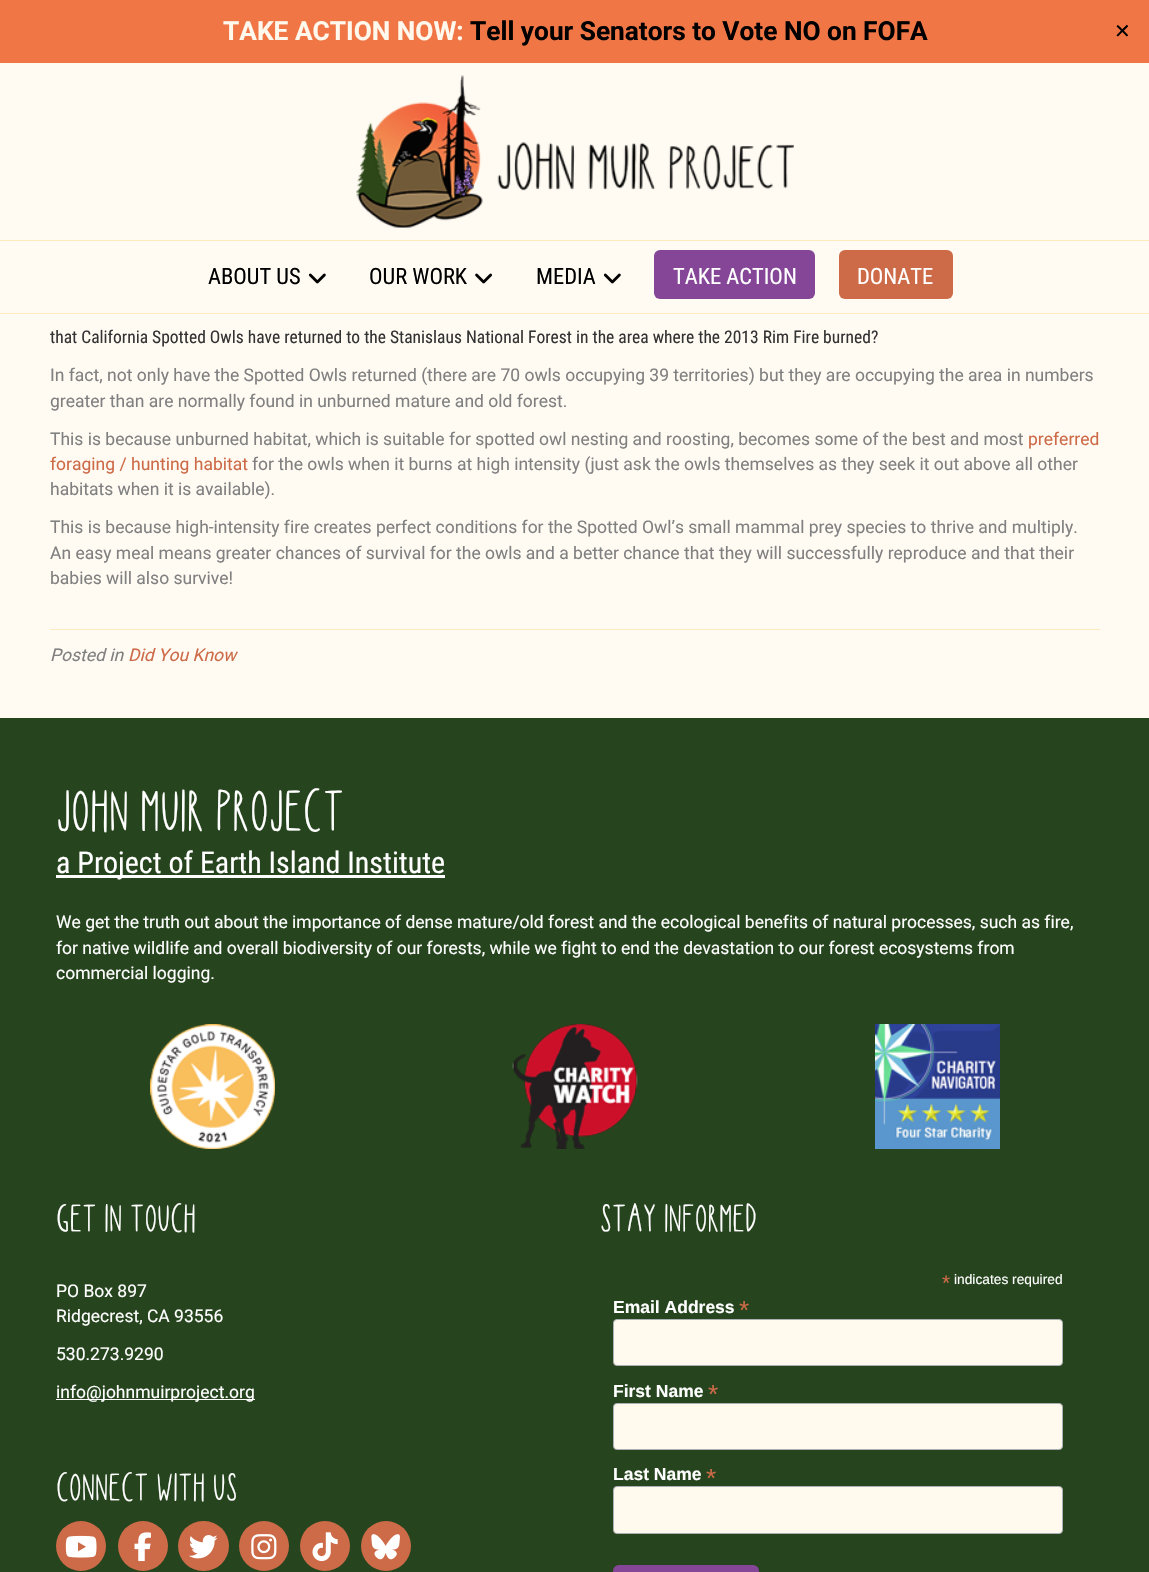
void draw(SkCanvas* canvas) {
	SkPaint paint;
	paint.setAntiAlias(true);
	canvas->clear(0xfffffbf3);
	paint.setColor(0xfff17646);
	canvas->drawRect(SkRect::MakeXYWH(0, 0, 1149, 63), paint);
	SkFont f1(fontMgr->matchFamilyStyle("Roboto", SkFontStyle::Bold()), 26.25);
	f1.setSubpixel(true);
	paint.setColor(0xfffff9ed);
	canvas->drawString("TAKE ACTION NOW:", 223, 40, f1, paint);
	paint.setColor(0xff000000);
	canvas->drawString("Tell your Senators to Vote NO on FOFA", 470, 40, f1, paint);
	SkFont f2(fontMgr->matchFamilyStyle("DejaVu Sans", SkFontStyle::Normal()), 20);
	f2.setSubpixel(true);
	canvas->drawString("✕", 1114, 38, f2, paint);
	canvas->drawImageRect(SkImages::DeferredFromEncodedData(SkData::MakeFromFileName("img1.png")), SkRect::MakeXYWH(356, 75, 438, 153), SkSamplingOptions());
	paint.setColor(0xffffeac0);
	canvas->drawRect(SkRect::MakeXYWH(0, 240, 1149, 1), paint);
	canvas->drawRect(SkRect::MakeXYWH(0, 313, 1149, 1), paint);
	SkFont f3(fontMgr->matchFamilyStyle("Roboto Condensed", SkFontStyle::Normal()), 22.5);
	f3.setSubpixel(true);
	paint.setColor(0xff000000);
	canvas->drawString("ABOUT US", 208, 284, f3, paint);
	canvas->drawImageRect(SkImages::DeferredFromEncodedData(SkData::MakeFromFileName("img2.png")), SkRect::MakeXYWH(308, 273, 18, 11), SkSamplingOptions());
	canvas->drawString("OUR WORK", 369, 284, f3, paint);
	canvas->drawImageRect(SkImages::DeferredFromEncodedData(SkData::MakeFromFileName("img3.png")), SkRect::MakeXYWH(475, 273, 17, 11), SkSamplingOptions());
	canvas->drawString("MEDIA", 536, 284, f3, paint);
	canvas->drawImageRect(SkImages::DeferredFromEncodedData(SkData::MakeFromFileName("img2.png")), SkRect::MakeXYWH(603, 273, 18, 11), SkSamplingOptions());
	paint.setColor(0xff854697);
	canvas->drawRoundRect(SkRect::MakeXYWH(654, 250, 161, 49), 6, 6, paint);
	paint.setColor(0xffffffff);
	canvas->drawString("TAKE ACTION", 673, 284, f3, paint);
	paint.setColor(0xffcd6a47);
	canvas->drawRoundRect(SkRect::MakeXYWH(839, 250, 114, 49), 6, 6, paint);
	paint.setColor(0xffffffff);
	canvas->drawString("DONATE", 857, 284, f3, paint);
	SkFont f4(fontMgr->matchFamilyStyle("Roboto Condensed", SkFontStyle::Normal()), 17.5);
	f4.setSubpixel(true);
	paint.setColor(0xff333333);
	canvas->drawString("that California Spotted Owls have returned to the Stanislaus National Forest in the area where the 2013 Rim Fire burned?", 50, 343, f4, paint);
	SkFont f5(fontMgr->matchFamilyStyle("Roboto", SkFontStyle::Normal()), 17.5);
	f5.setSubpixel(true);
	paint.setColor(0xff808080);
	canvas->drawString("In fact, not only have the Spotted Owls returned (there are 70 owls occupying 39 territories) but they are occupying the area in numbers", 50, 381, f5, paint);
	canvas->drawString("greater than are normally found in unburned mature and old forest.", 50, 407, f5, paint);
	canvas->drawString("This is because unburned habitat, which is suitable for spotted owl nesting and roosting, becomes some of the best and most", 50, 445, f5, paint);
	paint.setColor(0xffcd6a47);
	canvas->drawString("preferred", 1028, 445, f5, paint);
	canvas->drawString("foraging / hunting habitat", 50, 470, f5, paint);
	paint.setColor(0xff808080);
	canvas->drawString("for the owls when it burns at high intensity (just ask the owls themselves as they seek it out above all other", 252, 470, f5, paint);
	canvas->drawString("habitats when it is available).", 50, 495, f5, paint);
	canvas->drawString("This is because high-intensity fire creates perfect conditions for the Spotted Owl’s small mammal prey species to thrive and multiply.", 50, 533, f5, paint);
	canvas->drawString("An easy meal means greater chances of survival for the owls and a better chance that they will successfully reproduce and that their", 50, 559, f5, paint);
	canvas->drawString("babies will also survive!", 50, 584, f5, paint);
	paint.setColor(0xffffeac0);
	canvas->drawRect(SkRect::MakeXYWH(50, 629, 1050, 1), paint);
	SkFont f6(fontMgr->matchFamilyStyle("Roboto", SkFontStyle::Italic()), 17.5);
	f6.setSubpixel(true);
	paint.setColor(0xff808080);
	canvas->drawString("Posted in", 50, 661, f6, paint);
	paint.setColor(0xffcd6a47);
	canvas->drawString("Did You Know", 128, 661, f6, paint);
	paint.setColor(0xff26451e);
	canvas->drawRect(SkRect::MakeXYWH(0, 718, 1149, 854), paint);
	SkFont f7(fontMgr->matchFamilyStyle("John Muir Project", SkFontStyle::Normal()), 45);
	f7.setSubpixel(true);
	paint.setColor(0xffffffff);
	canvas->drawString("JOHN MUIR PROJECT", 56, 824, f7, paint);
	canvas->drawRect(SkRect::MakeXYWH(56, 875, 389, 3), paint);
	SkFont f8(fontMgr->matchFamilyStyle("Roboto Condensed", SkFontStyle::Normal()), 30);
	f8.setSubpixel(true);
	canvas->drawString("a Project of Earth Island Institute", 56, 873, f8, paint);
	canvas->drawString("We get the truth out about the importance of dense mature/old forest and the ecological benefits of natural processes, such as fire,", 56, 928, f5, paint);
	canvas->drawString("for native wildlife and overall biodiversity of our forests, while we fight to end the devastation to our forest ecosystems from", 56, 954, f5, paint);
	canvas->drawString("commercial logging.", 56, 979, f5, paint);
	canvas->drawImageRect(SkImages::DeferredFromEncodedData(SkData::MakeFromFileName("img4.png")), SkRect::MakeXYWH(150, 1024, 125, 125), SkSamplingOptions());
	canvas->drawImageRect(SkImages::DeferredFromEncodedData(SkData::MakeFromFileName("img5.png")), SkRect::MakeXYWH(512, 1024, 126, 125), SkSamplingOptions());
	canvas->drawImageRect(SkImages::DeferredFromEncodedData(SkData::MakeFromFileName("img6.png")), SkRect::MakeXYWH(875, 1024, 125, 125), SkSamplingOptions());
	SkFont f9(fontMgr->matchFamilyStyle("John Muir Project", SkFontStyle::Normal()), 30);
	f9.setSubpixel(true);
	canvas->drawString("GET IN TOUCH", 56, 1227, f9, paint);
	canvas->drawString("PO Box 897", 56, 1297, f5, paint);
	canvas->drawString("Ridgecrest, CA 93556", 56, 1322, f5, paint);
	canvas->drawString("530.273.9290", 56, 1360, f5, paint);
	canvas->drawRect(SkRect::MakeXYWH(56, 1399, 199, 1), paint);
	canvas->drawString("info@johnmuirproject.org", 56, 1398, f5, paint);
	canvas->drawString("CONNECT WITH US", 56, 1496, f9, paint);
	paint.setColor(0xffcd6a47);
	canvas->drawCircle(81, 1546, 25, paint);
	canvas->drawImageRect(SkImages::DeferredFromEncodedData(SkData::MakeFromFileName("img7.png")), SkRect::MakeXYWH(65, 1535, 32, 23), SkSamplingOptions());
	canvas->drawCircle(143, 1546, 25, paint);
	canvas->drawImageRect(SkImages::DeferredFromEncodedData(SkData::MakeFromFileName("img8.png")), SkRect::MakeXYWH(134, 1532, 17, 30), SkSamplingOptions());
	canvas->drawRoundRect(SkRect::MakeXYWH(178, 1521, 51, 50), 25, 25, paint);
	canvas->drawImageRect(SkImages::DeferredFromEncodedData(SkData::MakeFromFileName("img9.png")), SkRect::MakeXYWH(189, 1535, 29, 24), SkSamplingOptions());
	canvas->drawCircle(264, 1546, 25, paint);
	canvas->drawImageRect(SkImages::DeferredFromEncodedData(SkData::MakeFromFileName("img10.png")), SkRect::MakeXYWH(251, 1534, 26, 26), SkSamplingOptions());
	canvas->drawCircle(325, 1546, 25, paint);
	canvas->drawImageRect(SkImages::DeferredFromEncodedData(SkData::MakeFromFileName("img11.png")), SkRect::MakeXYWH(312, 1532, 26, 30), SkSamplingOptions());
	canvas->drawCircle(386, 1546, 25, paint);
	canvas->drawImageRect(SkImages::DeferredFromEncodedData(SkData::MakeFromFileName("img12.png")), SkRect::MakeXYWH(371, 1534, 29, 26), SkSamplingOptions());
	paint.setColor(0xffffffff);
	canvas->drawString("STAY INFORMED", 600, 1227, f9, paint);
	SkFont f10(fontMgr->matchFamilyStyle("Liberation Sans", SkFontStyle::Normal()), 21);
	f10.setSubpixel(true);
	paint.setColor(0xffcd6a47);
	canvas->drawString("*", 942, 1290, f10, paint);
	SkFont f11(fontMgr->matchFamilyStyle("Liberation Sans", SkFontStyle::Normal()), 13.75);
	f11.setSubpixel(true);
	paint.setColor(0xffffffff);
	canvas->drawString("indicates required", 954, 1284, f11, paint);
	SkFont f12(fontMgr->matchFamilyStyle("Liberation Sans", SkFontStyle::Bold()), 17.5);
	f12.setSubpixel(true);
	canvas->drawString("Email Address", 613, 1313, f12, paint);
	SkFont f13(fontMgr->matchFamilyStyle("Liberation Sans", SkFontStyle::Normal()), 26.25);
	f13.setSubpixel(true);
	paint.setColor(0xffcd6a47);
	canvas->drawString("*", 739, 1319, f13, paint);
	paint.setColor(0xfffff9ee);
	canvas->drawRoundRect(SkRect::MakeXYWH(613.5, 1319.5, 449, 46), 3.5, 3.5, paint);
	paint.setStroke(true);
	paint.setStrokeWidth(1);
	paint.setColor(0xffabb0b2);
	canvas->drawRoundRect(SkRect::MakeXYWH(613.5, 1319.5, 449, 46), 3.5, 3.5, paint);
	paint.setStroke(false);
	paint.setColor(0xffffffff);
	canvas->drawString("First Name", 613, 1397, f12, paint);
	paint.setColor(0xffcd6a47);
	canvas->drawString("*", 708, 1403, f13, paint);
	paint.setColor(0xfffff9ee);
	canvas->drawRoundRect(SkRect::MakeXYWH(613.5, 1403.5, 449, 46), 3.5, 3.5, paint);
	paint.setStroke(true);
	paint.setColor(0xffabb0b2);
	canvas->drawRoundRect(SkRect::MakeXYWH(613.5, 1403.5, 449, 46), 3.5, 3.5, paint);
	paint.setStroke(false);
	paint.setColor(0xffffffff);
	canvas->drawString("Last Name", 613, 1480, f12, paint);
	paint.setColor(0xffcd6a47);
	canvas->drawString("*", 706, 1487, f13, paint);
	paint.setColor(0xfffff9ee);
	canvas->drawRoundRect(SkRect::MakeXYWH(613.5, 1486.5, 449, 47), 3.5, 3.5, paint);
	paint.setStroke(true);
	paint.setColor(0xffabb0b2);
	canvas->drawRoundRect(SkRect::MakeXYWH(613.5, 1486.5, 449, 47), 3.5, 3.5, paint);
	paint.setStroke(false);
	paint.setColor(0xff854697);
	canvas->drawRoundRect(SkRect::MakeXYWH(613, 1565, 146, 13), 6, 6, paint);
}
